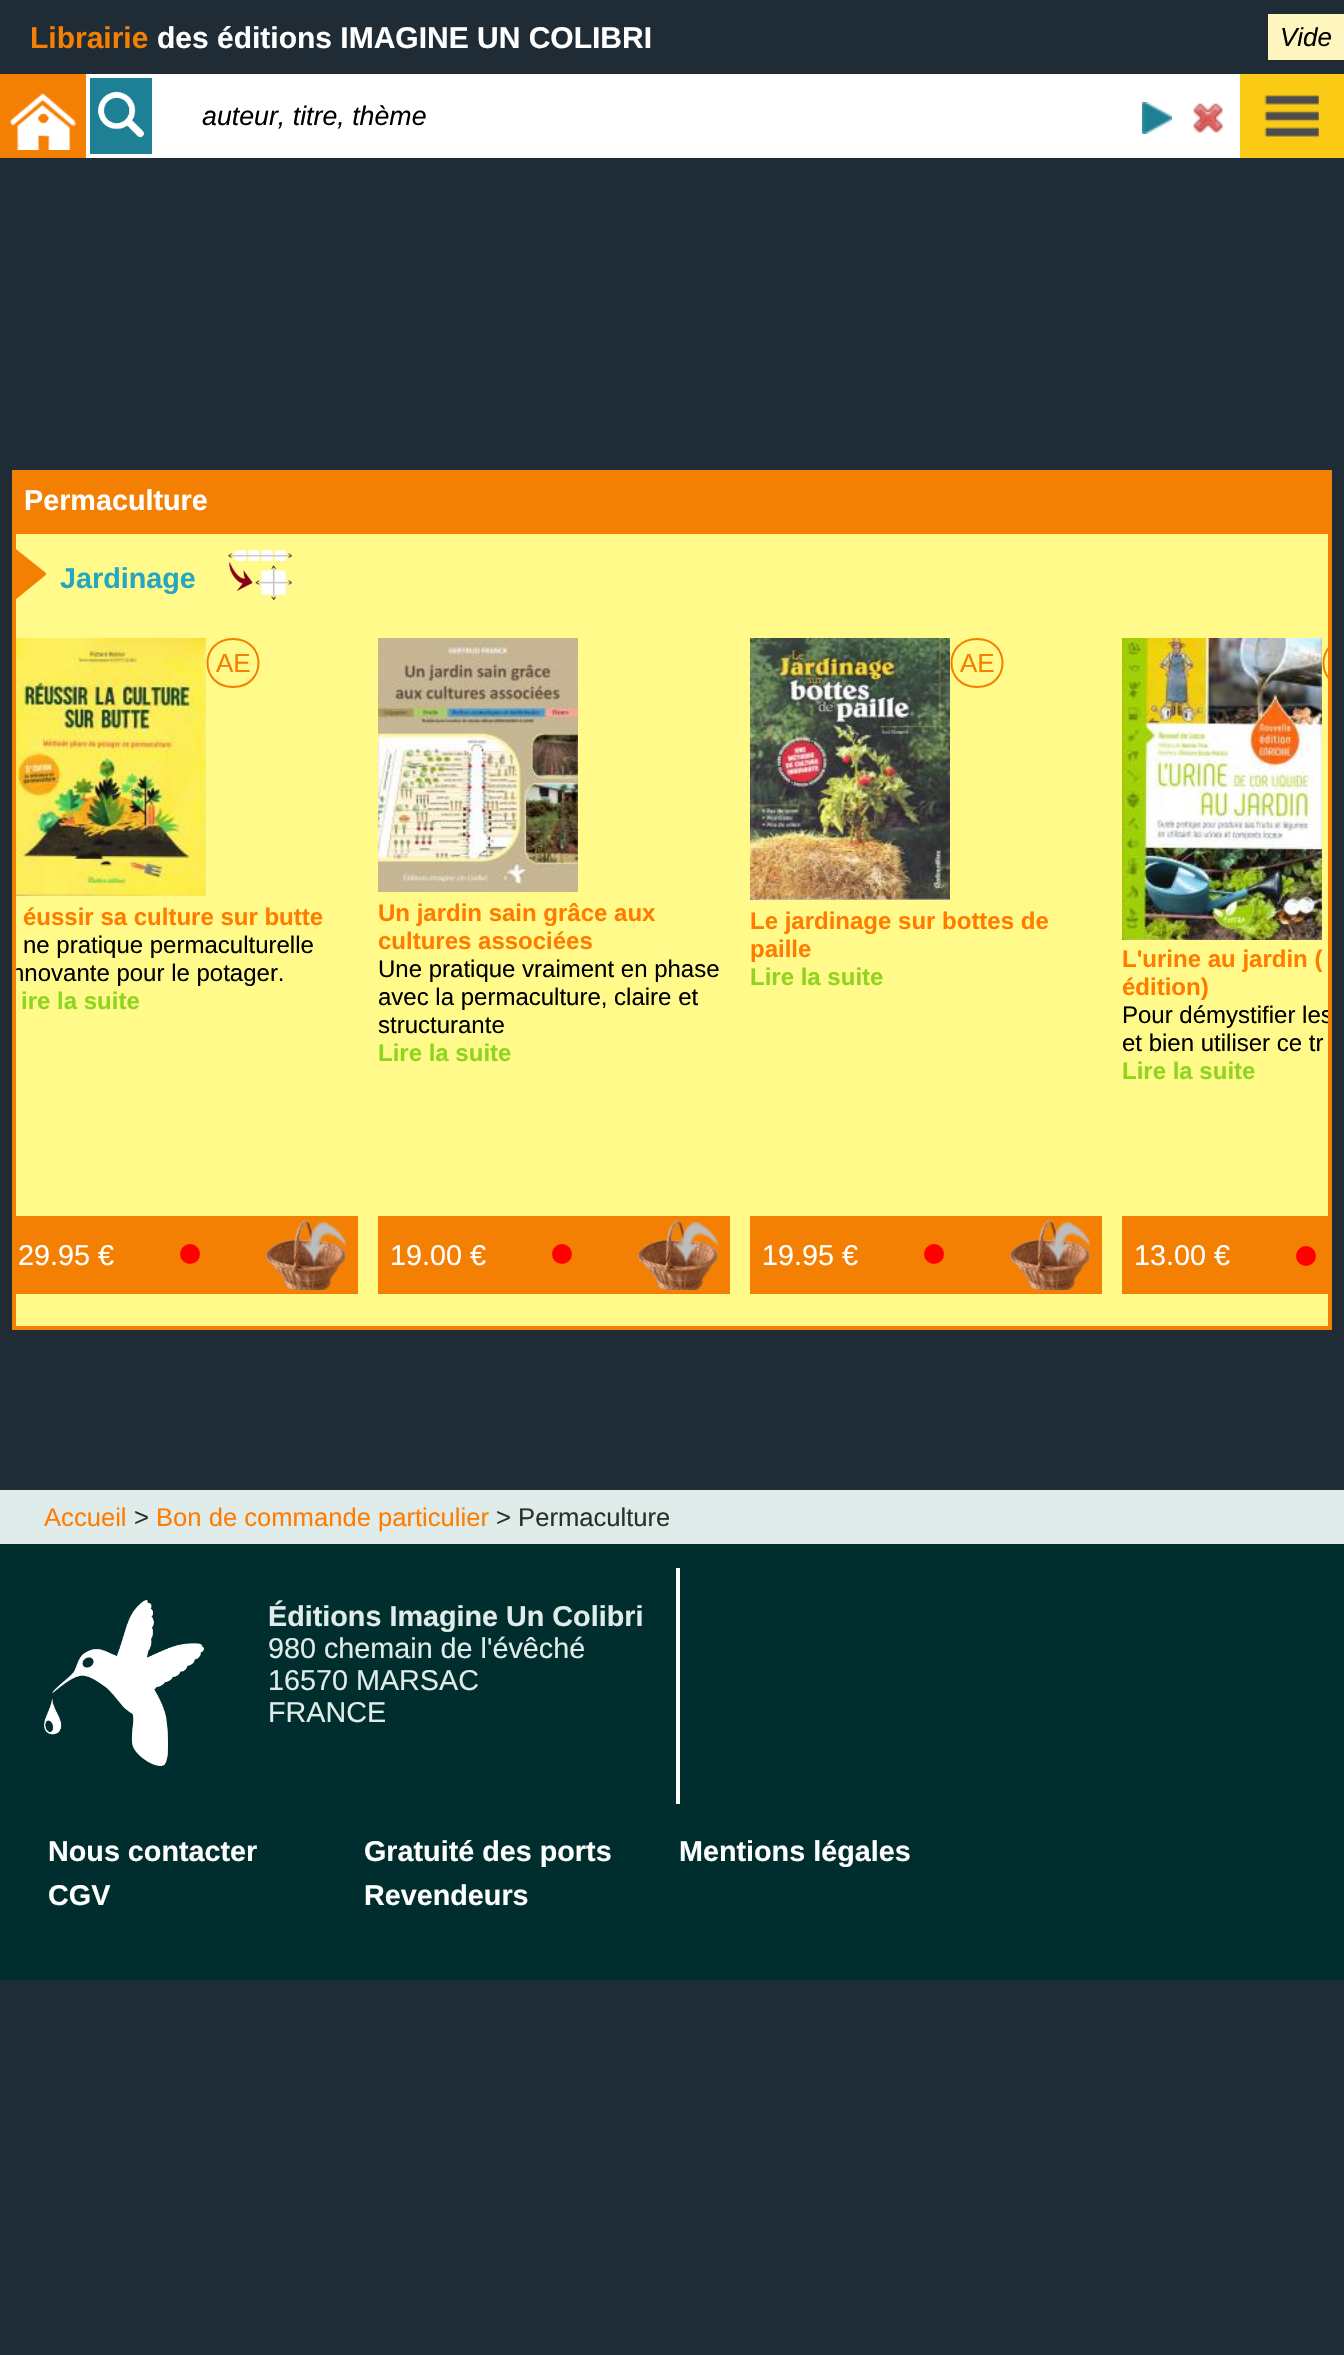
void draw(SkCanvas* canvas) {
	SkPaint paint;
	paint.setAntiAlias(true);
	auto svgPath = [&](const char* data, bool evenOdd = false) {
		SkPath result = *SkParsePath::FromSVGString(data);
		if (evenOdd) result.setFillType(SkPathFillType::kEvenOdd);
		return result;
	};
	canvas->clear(0xff202c35);
	SkFont f1(fontMgr->matchFamilyStyle("Liberation Sans", SkFontStyle::Bold()), 30);
	f1.setSubpixel(true);
	paint.setColor(0xfff48003);
	canvas->drawString("Librairie", 30, 48, f1, paint);
	paint.setColor(0xffffffff);
	canvas->drawString("des éditions IMAGINE UN COLIBRI", 157, 48, f1, paint);
	paint.setColor(0xfffff5bf);
	canvas->drawRect(SkRect::MakeXYWH(1268, 14, 76, 46), paint);
	SkFont f2(fontMgr->matchFamilyStyle("Liberation Sans", SkFontStyle::Italic()), 26);
	f2.setSubpixel(true);
	paint.setColor(0xff000000);
	canvas->drawString("Vide", 1280, 46, f2, paint);
	paint.setColor(0xfffaca15);
	canvas->drawRect(SkRect::MakeXYWH(1240, 74, 104, 84), paint);
	paint.setColor(0xfff48003);
	canvas->drawRect(SkRect::MakeXYWH(0, 74, 86, 84), paint);
	paint.setColor(0xffffffff);
	canvas->drawRect(SkRect::MakeXYWH(86, 74, 4, 84), paint);
	canvas->drawImageRect(SkImages::DeferredFromEncodedData(SkData::MakeFromFileName("img1.png")), SkRect::MakeXYWH(9, 93, 67, 57), SkSamplingOptions());
	canvas->drawRect(SkRect::MakeXYWH(1236, 74, 4, 84), paint);
	canvas->drawRect(SkRect::MakeXYWH(90, 74, 1146, 4), paint);
	canvas->drawRect(SkRect::MakeXYWH(90, 154, 1146, 4), paint);
	paint.setColor(0xff1e8095);
	canvas->drawRect(SkRect::MakeXYWH(90, 78, 62, 76), paint);
	canvas->drawImageRect(SkImages::DeferredFromEncodedData(SkData::MakeFromFileName("img2.png")), SkRect::MakeXYWH(97, 91, 48, 47), SkSamplingOptions());
	paint.setColor(0xffffffff);
	canvas->drawRect(SkRect::MakeXYWH(152, 78, 1084, 76), paint);
	SkFont f3(fontMgr->matchFamilyStyle("Liberation Sans", SkFontStyle::Italic()), 26.75);
	f3.setSubpixel(true);
	paint.setColor(0xff000000);
	canvas->drawString("auteur, titre, thème", 202, 125, f3, paint);
	canvas->drawImageRect(SkImages::DeferredFromEncodedData(SkData::MakeFromFileName("img3.png")), SkRect::MakeXYWH(1142, 102, 30, 32), SkSamplingOptions());
	canvas->drawImageRect(SkImages::DeferredFromEncodedData(SkData::MakeFromFileName("img4.png")), SkRect::MakeXYWH(1193, 103, 31, 30), SkSamplingOptions());
	canvas->drawImageRect(SkImages::DeferredFromEncodedData(SkData::MakeFromFileName("img5.png")), SkRect::MakeXYWH(1264, 95, 55, 42), SkSamplingOptions());
	paint.setColor(0xfff48003);
	canvas->drawRect(SkRect::MakeXYWH(12, 470, 1320, 60), paint);
	SkFont f4(fontMgr->matchFamilyStyle("Liberation Sans", SkFontStyle::Bold()), 28.75);
	f4.setSubpixel(true);
	paint.setColor(0xffffffff);
	canvas->drawString("Permaculture", 24, 510, f4, paint);
	paint.setStroke(true);
	paint.setStrokeWidth(4);
	paint.setColor(0xfff48003);
	canvas->drawRect(SkRect::MakeXYWH(14, 532, 1316, 796), paint);
	paint.setStroke(false);
	paint.setColor(0xfffffa8a);
	canvas->drawRect(SkRect::MakeXYWH(16, 534, 1312, 792), paint);
	canvas->drawImageRect(SkImages::DeferredFromEncodedData(SkData::MakeFromFileName("img6.png")), SkRect::MakeXYWH(16, 549, 30, 50), SkSamplingOptions());
	paint.setColor(0xff25a7c3);
	canvas->drawString("Jardinage", 60, 588, f4, paint);
	canvas->drawImageRect(SkImages::DeferredFromEncodedData(SkData::MakeFromFileName("img7.png")), SkRect::MakeXYWH(228, 550, 64, 51), SkSamplingOptions());
	canvas->drawImageRect(SkImages::DeferredFromEncodedData(SkData::MakeFromFileName("img8.png")), SkRect::MakeXYWH(16, 638, 190, 258), SkSamplingOptions());
	paint.setStroke(true);
	paint.setStrokeWidth(2);
	paint.setColor(0xfff48003);
	canvas->drawPath(svgPath("M233 639C267 639 267 687 233 687C199 687 199 639 233 639Z"), paint);
	SkFont f5(fontMgr->matchFamilyStyle("Liberation Sans", SkFontStyle::Normal()), 26);
	f5.setSubpixel(true);
	paint.setStroke(false);
	canvas->drawString("AE", 216, 672, f5, paint);
	SkFont f6(fontMgr->matchFamilyStyle("Liberation Sans", SkFontStyle::Bold()), 24);
	f6.setSubpixel(true);
	paint.setColor(0xffff7c00);
	canvas->drawString("éussir sa culture sur butte", 23, 925, f6, paint);
	SkFont f7(fontMgr->matchFamilyStyle("Liberation Sans", SkFontStyle::Normal()), 24);
	f7.setSubpixel(true);
	paint.setColor(0xff000000);
	canvas->drawString("ne pratique permaculturelle", 23, 953, f7, paint);
	canvas->save();
	canvas->clipRect(SkRect::MakeXYWH(16, 534, 1312, 792));
	canvas->drawString("nnovante pour le potager.", 11, 981, f7, paint);
	canvas->restore();
	paint.setColor(0xff8fd41f);
	canvas->drawString("ire la suite", 21, 1009, f6, paint);
	paint.setColor(0xfff48003);
	canvas->drawRect(SkRect::MakeXYWH(16, 1216, 342, 78), paint);
	SkFont f8(fontMgr->matchFamilyStyle("Liberation Sans", SkFontStyle::Normal()), 28.75);
	f8.setSubpixel(true);
	paint.setColor(0xffffffff);
	canvas->drawString("29.95 €", 18, 1265, f8, paint);
	paint.setColor(0xffff0000);
	canvas->drawCircle(190, 1254, 10, paint);
	canvas->drawImageRect(SkImages::DeferredFromEncodedData(SkData::MakeFromFileName("img9.png")), SkRect::MakeXYWH(266, 1220, 80, 70), SkSamplingOptions());
	canvas->drawImageRect(SkImages::DeferredFromEncodedData(SkData::MakeFromFileName("img10.png")), SkRect::MakeXYWH(378, 638, 200, 254), SkSamplingOptions());
	paint.setColor(0xffff7c00);
	canvas->drawString("Un jardin sain grâce aux", 378, 921, f6, paint);
	canvas->drawString("cultures associées", 378, 949, f6, paint);
	paint.setColor(0xff000000);
	canvas->drawString("Une pratique vraiment en phase", 378, 977, f7, paint);
	canvas->drawString("avec la permaculture, claire et", 378, 1005, f7, paint);
	canvas->drawString("structurante", 378, 1033, f7, paint);
	paint.setColor(0xff8fd41f);
	canvas->drawString("Lire la suite", 378, 1061, f6, paint);
	paint.setColor(0xfff48003);
	canvas->drawRect(SkRect::MakeXYWH(378, 1216, 352, 78), paint);
	paint.setColor(0xffffffff);
	canvas->drawString("19.00 €", 390, 1265, f8, paint);
	paint.setColor(0xffff0000);
	canvas->drawCircle(562, 1254, 10, paint);
	canvas->drawImageRect(SkImages::DeferredFromEncodedData(SkData::MakeFromFileName("img9.png")), SkRect::MakeXYWH(638, 1220, 80, 70), SkSamplingOptions());
	canvas->drawImageRect(SkImages::DeferredFromEncodedData(SkData::MakeFromFileName("img11.png")), SkRect::MakeXYWH(750, 638, 200, 262), SkSamplingOptions());
	paint.setStroke(true);
	paint.setColor(0xfff48003);
	canvas->drawPath(svgPath("M977 639C1011 639 1011 687 977 687C943 687 943 639 977 639Z"), paint);
	paint.setStroke(false);
	canvas->drawString("AE", 960, 672, f5, paint);
	paint.setColor(0xffff7c00);
	canvas->drawString("Le jardinage sur bottes de", 750, 929, f6, paint);
	canvas->drawString("paille", 750, 957, f6, paint);
	paint.setColor(0xff8fd41f);
	canvas->drawString("Lire la suite", 750, 985, f6, paint);
	paint.setColor(0xfff48003);
	canvas->drawRect(SkRect::MakeXYWH(750, 1216, 352, 78), paint);
	paint.setColor(0xffffffff);
	canvas->drawString("19.95 €", 762, 1265, f8, paint);
	paint.setColor(0xffff0000);
	canvas->drawCircle(934, 1254, 10, paint);
	canvas->drawImageRect(SkImages::DeferredFromEncodedData(SkData::MakeFromFileName("img9.png")), SkRect::MakeXYWH(1010, 1220, 80, 70), SkSamplingOptions());
	canvas->drawImageRect(SkImages::DeferredFromEncodedData(SkData::MakeFromFileName("img12.png")), SkRect::MakeXYWH(1122, 638, 200, 302), SkSamplingOptions());
	canvas->save();
	canvas->clipRect(SkRect::MakeXYWH(16, 534, 1312, 792));
	paint.setStroke(true);
	paint.setColor(0xfff48003);
	canvas->drawPath(svgPath("M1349 639C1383 639 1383 687 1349 687C1315 687 1315 639 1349 639Z"), paint);
	canvas->restore();
	paint.setStroke(false);
	paint.setColor(0xffff7c00);
	canvas->drawString("L'urine au jardin (", 1122, 967, f6, paint);
	canvas->drawString("édition)", 1122, 995, f6, paint);
	canvas->save();
	canvas->clipRect(SkRect::MakeXYWH(16, 534, 1312, 792));
	paint.setColor(0xff000000);
	canvas->drawString("Pour démystifier les", 1122, 1023, f7, paint);
	canvas->restore();
	canvas->drawString("et bien utiliser ce tr", 1122, 1051, f7, paint);
	paint.setColor(0xff8fd41f);
	canvas->drawString("Lire la suite", 1122, 1079, f6, paint);
	paint.setColor(0xfff48003);
	canvas->drawRect(SkRect::MakeXYWH(1122, 1216, 206, 78), paint);
	paint.setColor(0xffffffff);
	canvas->drawString("13.00 €", 1134, 1265, f8, paint);
	paint.setColor(0xffff0000);
	canvas->drawCircle(1306, 1256, 10, paint);
	paint.setColor(0xff002d2d);
	canvas->drawRect(SkRect::MakeXYWH(0, 1544, 1344, 436), paint);
	paint.setColor(0xffe0ece9);
	canvas->drawRect(SkRect::MakeXYWH(0, 1490, 1344, 54), paint);
	SkFont f9(fontMgr->matchFamilyStyle("Liberation Sans", SkFontStyle::Normal()), 25.6);
	f9.setSubpixel(true);
	paint.setColor(0xffff7c00);
	canvas->drawString("Accueil", 44, 1526, f9, paint);
	paint.setColor(0xff2b2f2d);
	canvas->drawString(">", 134, 1526, f9, paint);
	paint.setColor(0xffff7c00);
	canvas->drawString("Bon de commande particulier", 156, 1526, f9, paint);
	paint.setColor(0xff2b2f2d);
	canvas->drawString("> Permaculture", 496, 1526, f9, paint);
	canvas->drawImageRect(SkImages::DeferredFromEncodedData(SkData::MakeFromFileName("img13.png")), SkRect::MakeXYWH(44, 1600, 160, 166), SkSamplingOptions());
	paint.setColor(0xffffffff);
	canvas->drawRect(SkRect::MakeXYWH(676, 1568, 4, 236), paint);
	paint.setColor(0xffe0ece9);
	canvas->drawString("Éditions Imagine Un Colibri", 268, 1626, f4, paint);
	canvas->drawString("980 chemain de l'évêché", 268, 1658, f8, paint);
	canvas->drawString("16570 MARSAC", 268, 1690, f8, paint);
	canvas->drawString("FRANCE", 268, 1722, f8, paint);
	paint.setColor(0xffffffff);
	canvas->drawString("Nous contacter", 48, 1861, f4, paint);
	canvas->drawString("Gratuité des ports", 364, 1861, f4, paint);
	canvas->drawString("Mentions légales", 679, 1861, f4, paint);
	canvas->drawString("CGV", 48, 1905, f4, paint);
	canvas->drawString("Revendeurs", 364, 1905, f4, paint);
}
